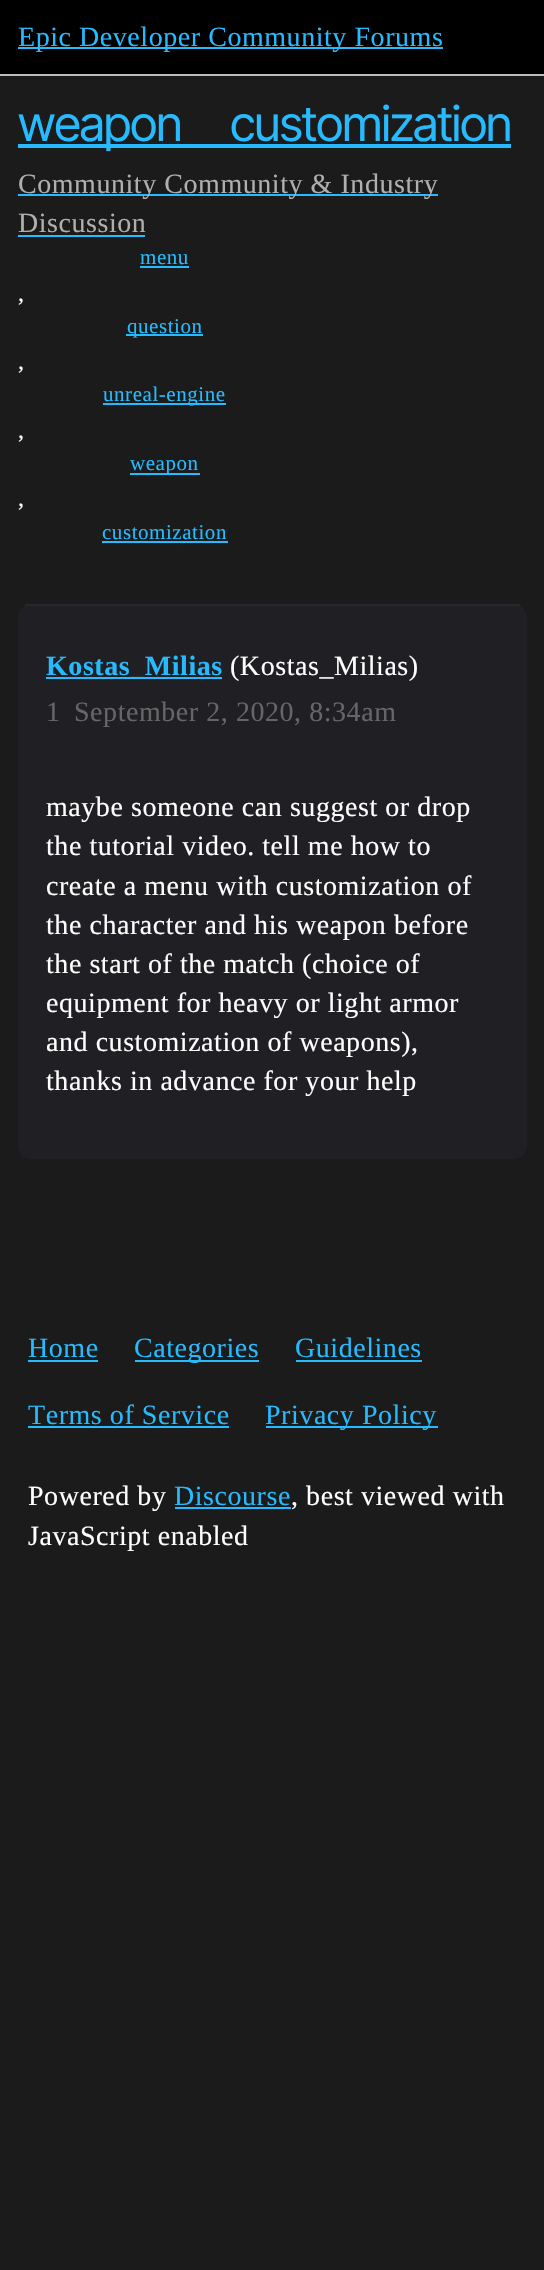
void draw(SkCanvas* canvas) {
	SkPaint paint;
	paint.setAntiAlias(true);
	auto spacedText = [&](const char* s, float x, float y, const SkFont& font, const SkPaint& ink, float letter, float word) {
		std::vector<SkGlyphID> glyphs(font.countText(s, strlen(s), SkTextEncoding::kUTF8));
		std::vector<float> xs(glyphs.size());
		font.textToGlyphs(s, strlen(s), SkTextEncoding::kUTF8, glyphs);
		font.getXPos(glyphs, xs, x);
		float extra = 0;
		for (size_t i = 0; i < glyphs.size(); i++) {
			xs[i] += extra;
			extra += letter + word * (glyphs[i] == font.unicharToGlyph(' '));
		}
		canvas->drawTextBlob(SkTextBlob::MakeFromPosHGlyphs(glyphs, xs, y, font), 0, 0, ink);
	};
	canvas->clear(0xff1b1b1b);
	paint.setColor(0xff000000);
	canvas->drawRect(SkRect::MakeXYWH(0, 0, 544, 74), paint);
	paint.setColor(0xffbdbdbd);
	canvas->drawRect(SkRect::MakeXYWH(0, 74, 544, 2), paint);
	paint.setColor(0xff26bbff);
	canvas->drawRect(SkRect::MakeXYWH(18, 47, 425, 2), paint);
	SkFont f1(fontMgr->matchFamilyStyle("Liberation Serif", SkFontStyle::Normal()), 28);
	f1.setSubpixel(true);
	spacedText("Epic Developer Community Forums", 18, 46, f1, paint, 0.55, 0);
	canvas->drawRect(SkRect::MakeXYWH(18, 144, 493, 4), paint);
	SkFont f2(fontMgr->matchFamilyStyle("Inter Tight", SkFontStyle::Normal()), 48.75);
	f2.setSubpixel(true);
	spacedText("weapon customization", 18, 141, f2, paint, -0.9, 38);
	canvas->drawRect(SkRect::MakeXYWH(18, 194, 420, 2), paint);
	paint.setColor(0xffafafb0);
	spacedText("Community Community & Industry", 18, 193, f1, paint, 0.55, 0);
	spacedText("Discussion", 18, 232, f1, paint, 0.55, 0);
	paint.setColor(0xff26bbff);
	canvas->drawRect(SkRect::MakeXYWH(18, 235, 127, 2), paint);
	SkFont f3(fontMgr->matchFamilyStyle("Liberation Serif", SkFontStyle::Normal()), 21);
	f3.setSubpixel(true);
	spacedText("menu", 140, 264, f3, paint, 0.55, 0);
	canvas->drawRect(SkRect::MakeXYWH(140, 266, 49, 2), paint);
	SkFont f4(fontMgr->matchFamilyStyle("Liberation Serif", SkFontStyle::Normal()), 24);
	f4.setSubpixel(true);
	paint.setColor(0xffffffff);
	spacedText(",", 18, 301, f4, paint, 0.55, 0);
	paint.setColor(0xff26bbff);
	canvas->drawRect(SkRect::MakeXYWH(126, 334, 77, 2), paint);
	spacedText("question", 127, 333, f3, paint, 0.55, 0);
	paint.setColor(0xffffffff);
	spacedText(",", 18, 369, f4, paint, 0.55, 0);
	paint.setColor(0xff26bbff);
	canvas->drawRect(SkRect::MakeXYWH(103, 403, 123, 2), paint);
	spacedText("unreal-engine", 103, 401, f3, paint, 0.55, 0);
	paint.setColor(0xffffffff);
	spacedText(",", 18, 438, f4, paint, 0.55, 0);
	paint.setColor(0xff26bbff);
	canvas->drawRect(SkRect::MakeXYWH(130, 473, 70, 2), paint);
	spacedText("weapon", 130, 470, f3, paint, 0.55, 0);
	paint.setColor(0xffffffff);
	spacedText(",", 18, 506, f4, paint, 0.55, 0);
	paint.setColor(0xff26bbff);
	spacedText("customization", 102, 539, f3, paint, 0.55, 0);
	canvas->drawRect(SkRect::MakeXYWH(102, 541, 126, 2), paint);
	paint.setColor(0xff202024);
	canvas->drawRoundRect(SkRect::MakeXYWH(18, 604, 509, 555), 14, 14, paint);
	paint.setColor(0xff28282c);
	canvas->drawRect(SkRect::MakeXYWH(25, 604, 495, 2), paint);
	paint.setColor(0xff26bbff);
	canvas->drawRect(SkRect::MakeXYWH(46, 677, 176, 2), paint);
	SkFont f5(fontMgr->matchFamilyStyle("Liberation Serif", SkFontStyle::Bold()), 28);
	f5.setSubpixel(true);
	spacedText("Kostas_Milias", 46, 675, f5, paint, 0.55, 0);
	paint.setColor(0xffffffff);
	spacedText("(Kostas_Milias)", 230, 675, f1, paint, 0.55, 0);
	paint.setColor(0xff666666);
	spacedText("1", 46, 721, f1, paint, 0.55, 0);
	spacedText("September 2, 2020, 8:34am", 74, 721, f1, paint, 0.55, 0);
	paint.setColor(0xffffffff);
	spacedText("maybe someone can suggest or drop", 46, 816, f1, paint, 0.55, 0);
	spacedText("the tutorial video. tell me how to", 46, 855, f1, paint, 0.55, 0);
	spacedText("create a menu with customization of", 46, 895, f1, paint, 0.55, 0);
	spacedText("the character and his weapon before", 46, 934, f1, paint, 0.55, 0);
	spacedText("the start of the match (choice of", 46, 973, f1, paint, 0.55, 0);
	spacedText("equipment for heavy or light armor", 46, 1012, f1, paint, 0.55, 0);
	spacedText("and customization of weapons),", 46, 1051, f1, paint, 0.55, 0);
	spacedText("thanks in advance for your help", 46, 1090, f1, paint, 0.55, 0);
	paint.setColor(0xff26bbff);
	spacedText("Home", 28, 1357, f1, paint, 0.55, 0);
	canvas->drawRect(SkRect::MakeXYWH(28, 1360, 70, 2), paint);
	canvas->drawRect(SkRect::MakeXYWH(135, 1360, 124, 2), paint);
	spacedText("Categories", 134, 1357, f1, paint, 0.55, 0);
	spacedText("Guidelines", 295, 1357, f1, paint, 0.55, 0);
	canvas->drawRect(SkRect::MakeXYWH(296, 1360, 126, 2), paint);
	spacedText("Terms of Service", 28, 1424, f1, paint, 0.55, 0);
	canvas->drawRect(SkRect::MakeXYWH(28, 1426, 201, 2), paint);
	canvas->drawRect(SkRect::MakeXYWH(266, 1426, 172, 2), paint);
	spacedText("Privacy Policy", 265, 1424, f1, paint, 0.55, 0);
	paint.setColor(0xffffffff);
	spacedText("Powered by", 28, 1505, f1, paint, 0.55, 0);
	paint.setColor(0xff26bbff);
	spacedText("Discourse", 174, 1505, f1, paint, 0.55, 0);
	canvas->drawRect(SkRect::MakeXYWH(175, 1507, 116, 2), paint);
	paint.setColor(0xffffffff);
	spacedText(", best viewed with", 291, 1505, f1, paint, 0.55, 0);
	spacedText("JavaScript enabled", 28, 1545, f1, paint, 0.55, 0);
}
